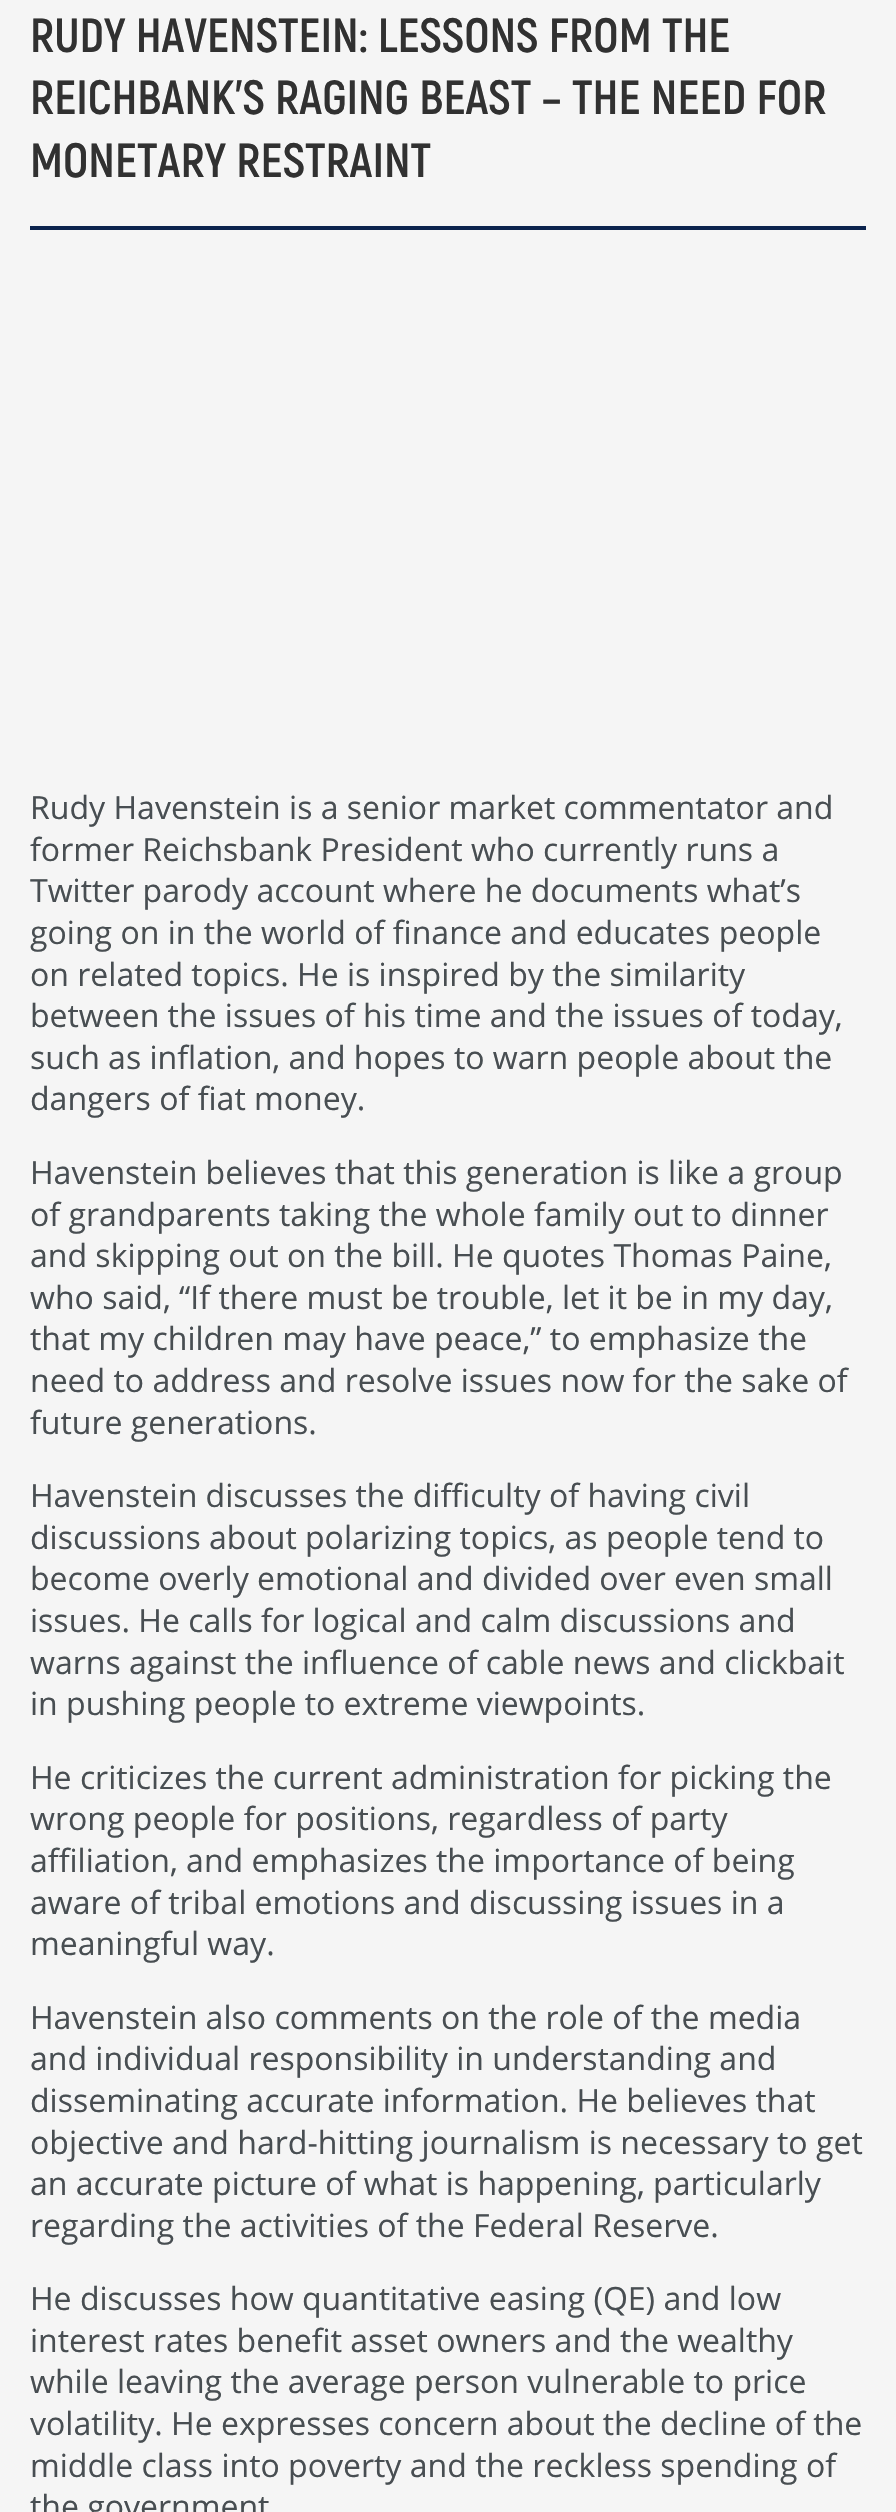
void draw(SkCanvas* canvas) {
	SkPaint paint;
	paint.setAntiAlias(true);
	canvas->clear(0xfff5f5f5);
	SkFont f1(fontMgr->matchFamilyStyle("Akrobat", SkFontStyle::Bold()), 48);
	f1.setSubpixel(true);
	paint.setColor(0xff313131);
	canvas->drawString("RUDY HAVENSTEIN: LESSONS FROM THE", 30, 52, f1, paint);
	canvas->drawString("REICHBANK’S RAGING BEAST – THE NEED FOR", 30, 114, f1, paint);
	canvas->drawString("MONETARY RESTRAINT", 30, 177, f1, paint);
	paint.setColor(0xff0b234d);
	canvas->drawRect(SkRect::MakeXYWH(30, 226, 836, 4), paint);
	SkFont f2(fontMgr->matchFamilyStyle("Open Sans", SkFontStyle::Normal()), 32);
	f2.setSubpixel(true);
	paint.setColor(0xff484e52);
	canvas->drawString("Rudy Havenstein is a senior market commentator and", 30, 819, f2, paint);
	canvas->drawString("former Reichsbank President who currently runs a", 30, 861, f2, paint);
	canvas->drawString("Twitter parody account where he documents what’s", 30, 902, f2, paint);
	canvas->drawString("going on in the world of finance and educates people", 30, 944, f2, paint);
	canvas->drawString("on related topics. He is inspired by the similarity", 30, 986, f2, paint);
	canvas->drawString("between the issues of his time and the issues of today,", 30, 1027, f2, paint);
	canvas->drawString("such as inflation, and hopes to warn people about the", 30, 1069, f2, paint);
	canvas->drawString("dangers of fiat money.", 30, 1110, f2, paint);
	canvas->drawString("Havenstein believes that this generation is like a group", 30, 1184, f2, paint);
	canvas->drawString("of grandparents taking the whole family out to dinner", 30, 1226, f2, paint);
	canvas->drawString("and skipping out on the bill. He quotes Thomas Paine,", 30, 1267, f2, paint);
	canvas->drawString("who said, “If there must be trouble, let it be in my day,", 30, 1309, f2, paint);
	canvas->drawString("that my children may have peace,” to emphasize the", 30, 1350, f2, paint);
	canvas->drawString("need to address and resolve issues now for the sake of", 30, 1392, f2, paint);
	canvas->drawString("future generations.", 30, 1434, f2, paint);
	canvas->drawString("Havenstein discusses the difficulty of having civil", 30, 1507, f2, paint);
	canvas->drawString("discussions about polarizing topics, as people tend to", 30, 1549, f2, paint);
	canvas->drawString("become overly emotional and divided over even small", 30, 1590, f2, paint);
	canvas->drawString("issues. He calls for logical and calm discussions and", 30, 1632, f2, paint);
	canvas->drawString("warns against the influence of cable news and clickbait", 30, 1674, f2, paint);
	canvas->drawString("in pushing people to extreme viewpoints.", 30, 1715, f2, paint);
	canvas->drawString("He criticizes the current administration for picking the", 30, 1789, f2, paint);
	canvas->drawString("wrong people for positions, regardless of party", 30, 1830, f2, paint);
	canvas->drawString("affiliation, and emphasizes the importance of being", 30, 1872, f2, paint);
	canvas->drawString("aware of tribal emotions and discussing issues in a", 30, 1914, f2, paint);
	canvas->drawString("meaningful way.", 30, 1955, f2, paint);
	canvas->drawString("Havenstein also comments on the role of the media", 30, 2029, f2, paint);
	canvas->drawString("and individual responsibility in understanding and", 30, 2070, f2, paint);
	canvas->drawString("disseminating accurate information. He believes that", 30, 2112, f2, paint);
	canvas->drawString("objective and hard-hitting journalism is necessary to get", 30, 2154, f2, paint);
	canvas->drawString("an accurate picture of what is happening, particularly", 30, 2195, f2, paint);
	canvas->drawString("regarding the activities of the Federal Reserve.", 30, 2237, f2, paint);
	canvas->drawString("He discusses how quantitative easing (QE) and low", 30, 2310, f2, paint);
	canvas->drawString("interest rates benefit asset owners and the wealthy", 30, 2352, f2, paint);
	canvas->drawString("while leaving the average person vulnerable to price", 30, 2393, f2, paint);
	canvas->drawString("volatility. He expresses concern about the decline of the", 30, 2435, f2, paint);
	canvas->drawString("middle class into poverty and the reckless spending of", 30, 2477, f2, paint);
	canvas->drawString("the government", 30, 2518, f2, paint);
}
